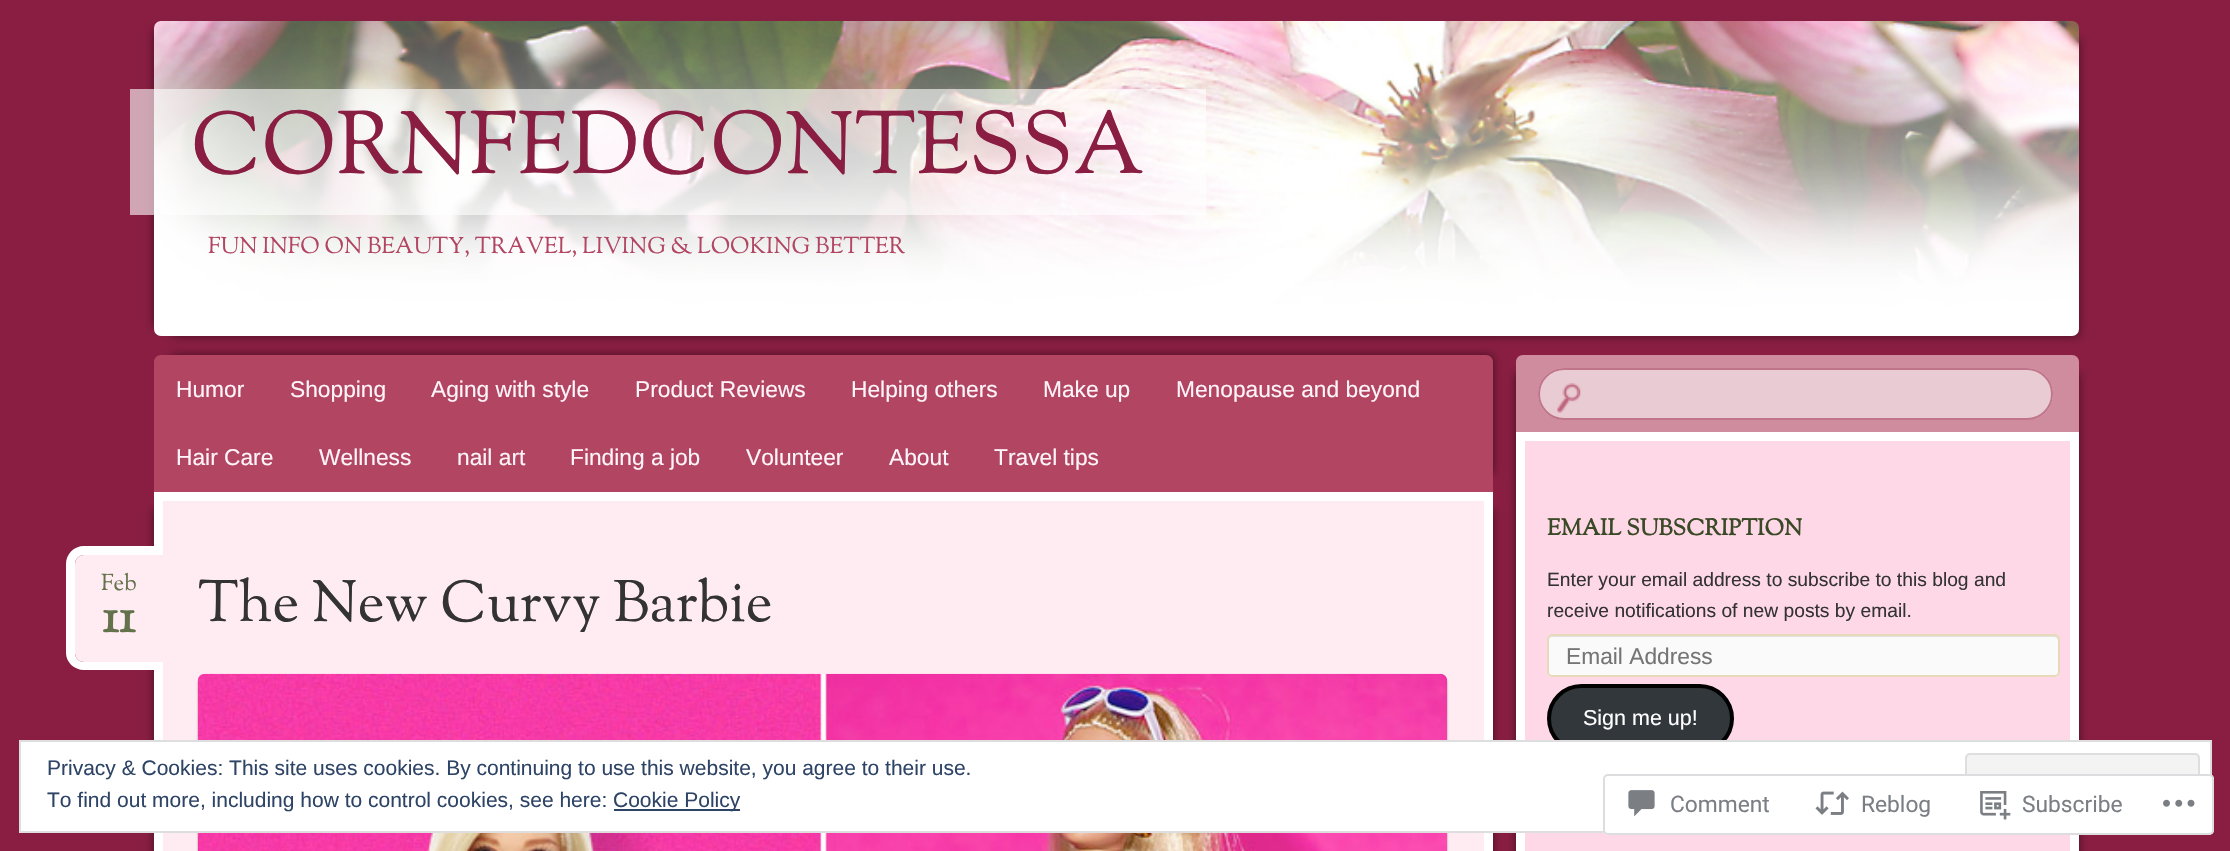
void draw(SkCanvas* canvas) {
	SkPaint paint;
	paint.setAntiAlias(true);
	auto svgPath = [&](const char* data, bool evenOdd = false) {
		SkPath result = *SkParsePath::FromSVGString(data);
		if (evenOdd) result.setFillType(SkPathFillType::kEvenOdd);
		return result;
	};
	canvas->clear(0xff891e42);
	paint.setColor(0x80000000);
	paint.setMaskFilter(SkMaskFilter::MakeBlur(kNormal_SkBlurStyle, 4.5));
	canvas->drawRect(SkRect::MakeXYWH(154, 30, 1908, 297), paint);
	paint.setMaskFilter(nullptr);
	paint.setMaskFilter(SkMaskFilter::MakeBlur(kNormal_SkBlurStyle, 4.5));
	canvas->drawRect(SkRect::MakeXYWH(172, 39, 1907, 297), paint);
	paint.setMaskFilter(nullptr);
	canvas->drawImageRect(SkImages::DeferredFromEncodedData(SkData::MakeFromFileName("img1.png")), SkRect::MakeXYWH(154, 21, 1925, 315), SkSamplingOptions());
	paint.setColor(0x99ffffff);
	canvas->drawRect(SkRect::MakeXYWH(130, 89, 1076, 126), paint);
	SkFont f1(fontMgr->matchFamilyStyle("Sorts Mill Goudy", SkFontStyle::Normal()), 87.5);
	f1.setSubpixel(true);
	paint.setColor(0xff891e42);
	canvas->drawString("CORNFEDCONTESSA", 191, 173, f1, paint);
	SkFont f2(fontMgr->matchFamilyStyle("Sorts Mill Goudy", SkFontStyle::Normal()), 22.75);
	f2.setSubpixel(true);
	paint.setColor(0xffb14562);
	canvas->drawString("FUN INFO ON BEAUTY, TRAVEL, LIVING & LOOKING BETTER", 208, 253, f2, paint);
	paint.setColor(0x80000000);
	paint.setMaskFilter(SkMaskFilter::MakeBlur(kNormal_SkBlurStyle, 4.5));
	canvas->drawRect(SkRect::MakeXYWH(172, 355, 1321, 119), paint);
	paint.setMaskFilter(nullptr);
	paint.setColor(0xffb14562);
	canvas->drawPath(svgPath("M161 355H1486C1490 355 1493 358 1493 362V492H154V362C154 358 157 355 161 355Z"), paint);
	SkFont f3(fontMgr->matchFamilyStyle("Liberation Sans", SkFontStyle::Normal()), 22.75);
	f3.setSubpixel(true);
	paint.setColor(0xfffff4f9);
	canvas->drawString("Humor", 176, 397, f3, paint);
	canvas->drawString("Shopping", 290, 397, f3, paint);
	canvas->drawString("Aging with style", 431, 397, f3, paint);
	canvas->drawString("Product Reviews", 635, 397, f3, paint);
	canvas->drawString("Helping others", 851, 397, f3, paint);
	canvas->drawString("Make up", 1043, 397, f3, paint);
	canvas->drawString("Menopause and beyond", 1176, 397, f3, paint);
	canvas->drawString("Hair Care", 176, 465, f3, paint);
	canvas->drawString("Wellness", 319, 465, f3, paint);
	canvas->drawString("nail art", 457, 465, f3, paint);
	canvas->drawString("Finding a job", 570, 465, f3, paint);
	canvas->drawString("Volunteer", 746, 465, f3, paint);
	canvas->drawString("About", 889, 465, f3, paint);
	canvas->drawString("Travel tips", 994, 465, f3, paint);
	paint.setColor(0x80000000);
	paint.setMaskFilter(SkMaskFilter::MakeBlur(kNormal_SkBlurStyle, 4.5));
	canvas->drawRect(SkRect::MakeXYWH(154, 509, 1321, 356), paint);
	paint.setMaskFilter(nullptr);
	paint.setMaskFilter(SkMaskFilter::MakeBlur(kNormal_SkBlurStyle, 4.5));
	canvas->drawRect(SkRect::MakeXYWH(172, 509, 1321, 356), paint);
	paint.setMaskFilter(nullptr);
	paint.setColor(0xffffebf2);
	canvas->drawRect(SkRect::MakeXYWH(158.5, 496.5, 1330, 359), paint);
	paint.setStroke(true);
	paint.setStrokeWidth(9);
	paint.setColor(0xffffffff);
	canvas->drawRect(SkRect::MakeXYWH(158.5, 496.5, 1330, 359), paint);
	paint.setStroke(false);
	paint.setColor(0xffffebf2);
	canvas->drawPath(svgPath("M84 555H163V662H84C79 662 75 658 75 653V564C75 559 79 555 84 555Z"), paint);
	paint.setColor(0xffffffff);
	canvas->drawPath(svgPath("M84 546H163V670H84C74 670 66 662 66 653V564C66 554 74 546 84 546ZM84 555H163V662H84C79 662 75 658 75 653V564C75 559 79 555 84 555Z", true), paint);
	paint.setColor(0xff63724b);
	canvas->drawString("Feb", 101, 590, f2, paint);
	SkFont f4(fontMgr->matchFamilyStyle("Sorts Mill Goudy", SkFontStyle::Bold()), 49);
	f4.setSubpixel(true);
	canvas->drawString("11", 102, 632, f4, paint);
	SkFont f5(fontMgr->matchFamilyStyle("Sorts Mill Goudy", SkFontStyle::Normal()), 57.75);
	f5.setSubpixel(true);
	paint.setColor(0xff333333);
	canvas->drawString("The New Curvy Barbie", 198, 621, f5, paint);
	paint.setColor(0x66000000);
	paint.setMaskFilter(SkMaskFilter::MakeBlur(kNormal_SkBlurStyle, 1));
	canvas->drawRoundRect(SkRect::MakeXYWH(198, 676, 1249, 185), 7, 7, paint);
	paint.setMaskFilter(nullptr);
	canvas->drawImageRect(SkImages::DeferredFromEncodedData(SkData::MakeFromFileName("img2.png")), SkRect::MakeXYWH(197, 673, 1251, 178), SkSamplingOptions());
	paint.setColor(0x80000000);
	paint.setMaskFilter(SkMaskFilter::MakeBlur(kNormal_SkBlurStyle, 4.5));
	canvas->drawRect(SkRect::MakeXYWH(1516, 373, 546, 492), paint);
	paint.setMaskFilter(nullptr);
	paint.setMaskFilter(SkMaskFilter::MakeBlur(kNormal_SkBlurStyle, 4.5));
	canvas->drawRect(SkRect::MakeXYWH(1533, 373, 546, 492), paint);
	paint.setMaskFilter(nullptr);
	paint.setColor(0xffcf8c9e);
	canvas->drawPath(svgPath("M1523 355H2072C2076 355 2079 358 2079 362V432H1516V362C1516 358 1519 355 1523 355Z"), paint);
	paint.setColor(0xffe9cbd3);
	canvas->drawRoundRect(SkRect::MakeXYWH(1538, 368, 515, 52), 26, 26, paint);
	canvas->drawImageRect(SkImages::DeferredFromEncodedData(SkData::MakeFromFileName("img3.png")), SkRect::MakeXYWH(1557, 383, 24, 30), SkSamplingOptions());
	paint.setStroke(true);
	paint.setStrokeWidth(2);
	paint.setColor(0xffc0758b);
	canvas->drawRoundRect(SkRect::MakeXYWH(1539, 369, 513, 50), 25, 25, paint);
	paint.setStroke(false);
	paint.setColor(0xffffd8e8);
	canvas->drawRect(SkRect::MakeXYWH(1520.5, 436.5, 554, 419), paint);
	paint.setStroke(true);
	paint.setStrokeWidth(9);
	paint.setColor(0xffffffff);
	canvas->drawRect(SkRect::MakeXYWH(1520.5, 436.5, 554, 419), paint);
	SkFont f6(fontMgr->matchFamilyStyle("Sorts Mill Goudy", SkFontStyle::Bold()), 22.75);
	f6.setSubpixel(true);
	paint.setStroke(false);
	paint.setColor(0xff3b4a26);
	canvas->drawString("EMAIL SUBSCRIPTION", 1547, 535, f6, paint);
	SkFont f7(fontMgr->matchFamilyStyle("Liberation Sans", SkFontStyle::Normal()), 19.25);
	f7.setSubpixel(true);
	paint.setColor(0xff333333);
	canvas->drawString("Enter your email address to subscribe to this blog and", 1547, 586, f7, paint);
	canvas->drawString("receive notifications of new posts by email.", 1547, 617, f7, paint);
	paint.setColor(0xfffafafa);
	canvas->drawRoundRect(SkRect::MakeXYWH(1547, 634, 513, 43), 5, 5, paint);
	paint.setColor(0xffe1e1e1);
	canvas->drawPath(svgPath("M1552 637H2054C2056 637 2058 639 2058 640V639C2058 637 2056 635 2054 635H1553C1551 635 1549 637 1549 639V640C1549 639 1550 637 1552 637Z"), paint);
	paint.setStroke(true);
	paint.setStrokeWidth(2);
	paint.setColor(0xffe7d9b9);
	canvas->drawRoundRect(SkRect::MakeXYWH(1548, 635, 511, 41), 4, 4, paint);
	paint.setStroke(false);
	paint.setColor(0xff757575);
	canvas->drawString("Email Address", 1566, 664, f3, paint);
	paint.setColor(0xff32373c);
	canvas->drawRoundRect(SkRect::MakeXYWH(1549, 686, 183, 65), 32.5, 32.5, paint);
	paint.setStroke(true);
	paint.setStrokeWidth(4);
	paint.setColor(0xff000000);
	canvas->drawRoundRect(SkRect::MakeXYWH(1549, 686, 183, 65), 32.5, 32.5, paint);
	SkFont f8(fontMgr->matchFamilyStyle("Liberation Sans", SkFontStyle::Normal()), 21.5);
	f8.setSubpixel(true);
	paint.setStroke(false);
	paint.setColor(0xffffffff);
	canvas->drawString("Sign me up!", 1583, 725, f8, paint);
	canvas->drawRect(SkRect::MakeXYWH(20, 741, 2191, 91), paint);
	paint.setStroke(true);
	paint.setStrokeWidth(2);
	paint.setColor(0xffdedede);
	canvas->drawRect(SkRect::MakeXYWH(20, 741, 2191, 91), paint);
	SkFont f9(fontMgr->matchFamilyStyle("Liberation Sans", SkFontStyle::Normal()), 21);
	f9.setSubpixel(true);
	paint.setStroke(false);
	paint.setColor(0xff2e4467);
	canvas->drawString("Privacy & Cookies: This site uses cookies. By continuing to use this website, you agree to their use.", 47, 775, f9, paint);
	paint.setColor(0xfff3f3f3);
	canvas->drawRoundRect(SkRect::MakeXYWH(1966, 754, 233, 66), 4, 4, paint);
	paint.setStroke(true);
	paint.setColor(0xffdedede);
	canvas->drawRoundRect(SkRect::MakeXYWH(1966, 754, 233, 66), 4, 4, paint);
	paint.setStroke(false);
	paint.setColor(0xff2e4467);
	canvas->drawString("To find out more, including how to control cookies, see here:", 47, 807, f9, paint);
	canvas->drawRect(SkRect::MakeXYWH(614, 809, 126, 2), paint);
	canvas->drawString("Cookie Policy", 613, 807, f9, paint);
	paint.setColor(0xfaffffff);
	canvas->drawRoundRect(SkRect::MakeXYWH(1603, 774, 611, 61), 5, 5, paint);
	paint.setStroke(true);
	paint.setColor(0xfadcdcde);
	canvas->drawRoundRect(SkRect::MakeXYWH(1604, 775, 609, 59), 4, 4, paint);
	canvas->drawImageRect(SkImages::DeferredFromEncodedData(SkData::MakeFromFileName("img4.png")), SkRect::MakeXYWH(1628, 790, 27, 27), SkSamplingOptions());
	SkFont f10(fontMgr->matchFamilyStyle("Roboto", SkFontStyle::Normal()), 22.75);
	f10.setSubpixel(true);
	paint.setStroke(false);
	paint.setColor(0xff7b7f85);
	canvas->drawString("Comment", 1670, 812, f10, paint);
	canvas->drawImageRect(SkImages::DeferredFromEncodedData(SkData::MakeFromFileName("img5.png")), SkRect::MakeXYWH(1815, 791, 34, 24), SkSamplingOptions());
	canvas->drawString("Reblog", 1861, 812, f10, paint);
	canvas->drawImageRect(SkImages::DeferredFromEncodedData(SkData::MakeFromFileName("img6.png")), SkRect::MakeXYWH(1980, 791, 31, 29), SkSamplingOptions());
	canvas->drawString("Subscribe", 2022, 812, f10, paint);
	canvas->drawImageRect(SkImages::DeferredFromEncodedData(SkData::MakeFromFileName("img7.png")), SkRect::MakeXYWH(2163, 799, 32, 8), SkSamplingOptions());
}
